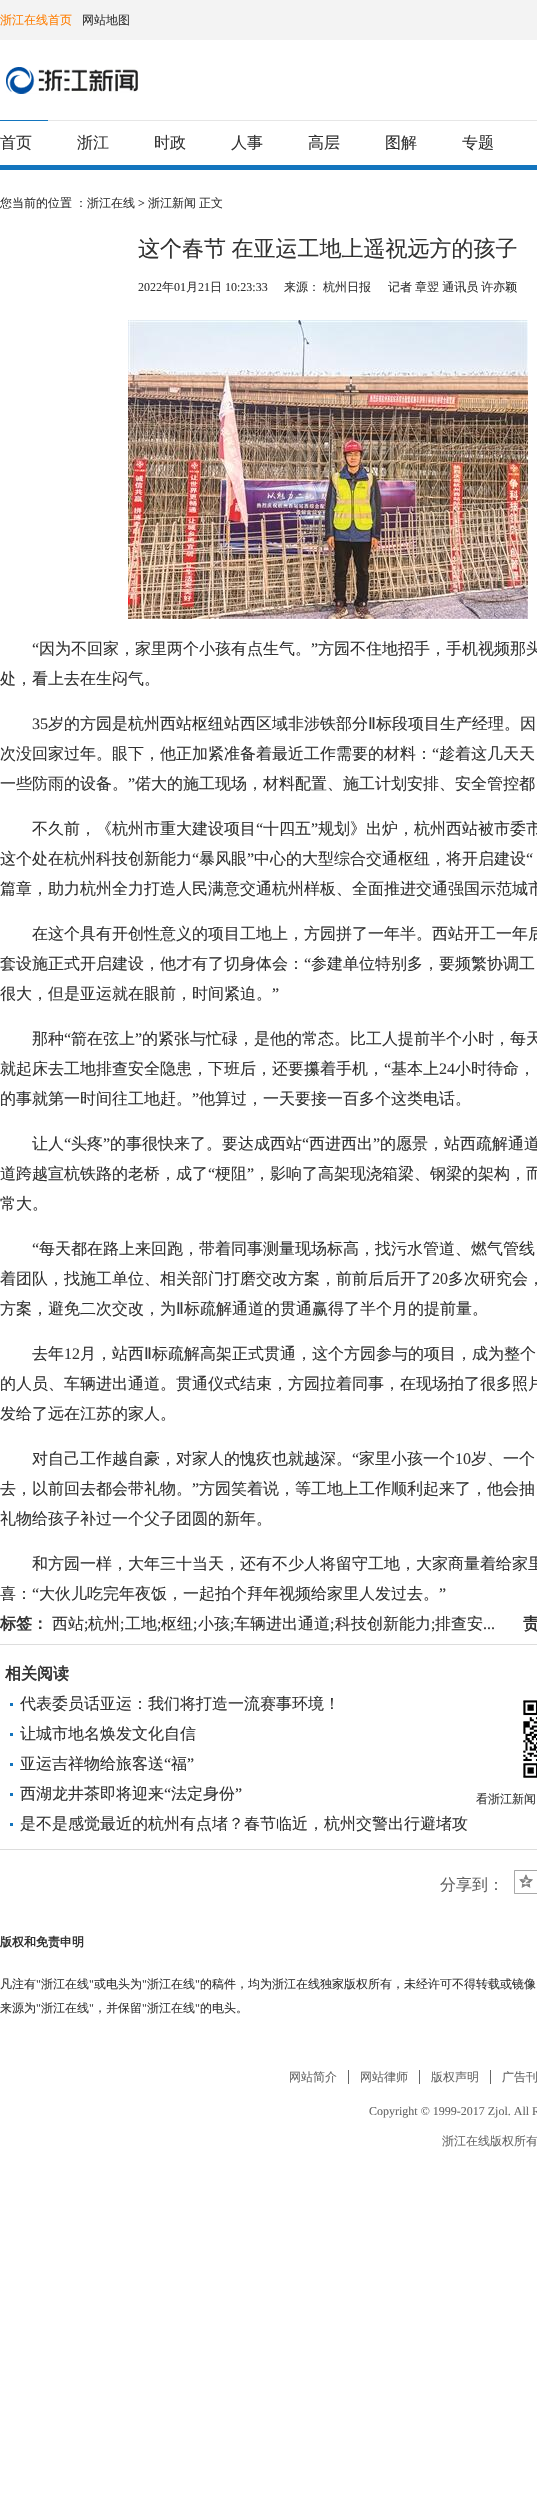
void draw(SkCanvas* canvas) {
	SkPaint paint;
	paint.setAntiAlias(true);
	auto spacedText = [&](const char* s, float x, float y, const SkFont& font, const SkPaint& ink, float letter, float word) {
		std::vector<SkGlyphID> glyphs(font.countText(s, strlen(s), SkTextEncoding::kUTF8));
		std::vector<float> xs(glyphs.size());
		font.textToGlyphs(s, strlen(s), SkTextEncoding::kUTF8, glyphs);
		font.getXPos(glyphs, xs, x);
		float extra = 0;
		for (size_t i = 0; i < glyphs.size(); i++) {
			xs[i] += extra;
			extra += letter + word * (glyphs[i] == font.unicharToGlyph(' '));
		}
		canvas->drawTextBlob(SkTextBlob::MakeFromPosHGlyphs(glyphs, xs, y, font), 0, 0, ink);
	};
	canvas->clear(0xffffffff);
	paint.setColor(0xfff3f3f3);
	canvas->drawRect(SkRect::MakeXYWH(0, 0, 537, 40), paint);
	SkFont f1(fontMgr->matchFamilyStyle("WenQuanYi Zen Hei", SkFontStyle(500, SkFontStyle::kNormal_Width, SkFontStyle::kUpright_Slant)), 12);
	f1.setSubpixel(true);
	paint.setColor(0xffff7d00);
	canvas->drawString("浙江在线首页", 0, 24, f1, paint);
	paint.setColor(0xff333333);
	canvas->drawString("网站地图", 82, 24, f1, paint);
	canvas->drawImageRect(SkImages::DeferredFromEncodedData(SkData::MakeFromFileName("img1.png")), SkRect::MakeXYWH(6, 67, 132, 27), SkSamplingOptions());
	paint.setColor(0xffe6e6e6);
	canvas->drawRect(SkRect::MakeXYWH(48, 120, 489, 1), paint);
	paint.setColor(0xff1375be);
	canvas->drawRect(SkRect::MakeXYWH(0, 120, 48, 1), paint);
	SkFont f2(fontMgr->matchFamilyStyle("WenQuanYi Zen Hei", SkFontStyle(500, SkFontStyle::kNormal_Width, SkFontStyle::kUpright_Slant)), 16);
	f2.setSubpixel(true);
	paint.setColor(0xff333333);
	canvas->drawString("首页", 0, 148, f2, paint);
	canvas->drawString("浙江", 77, 148, f2, paint);
	canvas->drawString("时政", 154, 148, f2, paint);
	canvas->drawString("人事", 231, 148, f2, paint);
	canvas->drawString("高层", 308, 148, f2, paint);
	canvas->drawString("图解", 385, 148, f2, paint);
	canvas->drawString("专题", 462, 148, f2, paint);
	paint.setColor(0xff1375be);
	canvas->drawRect(SkRect::MakeXYWH(0, 165, 537, 5), paint);
	paint.setColor(0xff333333);
	spacedText("您当前的位置 ：", 0, 207, f1, paint, 0, -0.5);
	canvas->drawString("浙江在线", 87, 207, f1, paint);
	SkFont f3(fontMgr->matchFamilyStyle("Liberation Serif", SkFontStyle::Normal()), 12);
	f3.setSubpixel(true);
	canvas->drawString(">", 138, 207, f3, paint);
	canvas->drawString("浙江新闻", 148, 207, f1, paint);
	canvas->drawString("正文", 199, 207, f1, paint);
	SkFont f4(fontMgr->matchFamilyStyle("WenQuanYi Zen Hei", SkFontStyle(500, SkFontStyle::kNormal_Width, SkFontStyle::kUpright_Slant)), 22);
	f4.setSubpixel(true);
	spacedText("这个春节 在亚运工地上遥祝远方的孩子", 138, 256, f4, paint, 0, -1);
	canvas->drawString("2022", 138, 291, f3, paint);
	canvas->drawString("年", 162, 291, f1, paint);
	canvas->drawString("01", 174, 291, f3, paint);
	canvas->drawString("月", 186, 291, f1, paint);
	canvas->drawString("21", 198, 291, f3, paint);
	canvas->drawString("日", 210, 291, f1, paint);
	canvas->drawString("10:23:33", 225, 291, f3, paint);
	canvas->drawString("来源：", 284, 291, f1, paint);
	canvas->drawString("杭州日报", 323, 291, f1, paint);
	spacedText("记者 章翌 通讯员 许亦颖", 388, 291, f1, paint, 0, -0.5);
	canvas->drawImageRect(SkImages::DeferredFromEncodedData(SkData::MakeFromFileName("img2.png")), SkRect::MakeXYWH(128, 320, 400, 299), SkSamplingOptions());
	SkFont f5(fontMgr->matchFamilyStyle("Liberation Serif", SkFontStyle::Normal()), 16);
	f5.setSubpixel(true);
	canvas->drawString("“", 32, 654, f5, paint);
	canvas->drawString("因为不回家，家里两个小孩有点生气。", 39, 654, f2, paint);
	canvas->drawString("”", 311, 654, f5, paint);
	canvas->drawString("方园不住地招手，手机视频那头", 318, 654, f2, paint);
	canvas->drawString("处，看上去在生闷气。", 0, 684, f2, paint);
	canvas->drawString("35", 32, 729, f5, paint);
	canvas->drawString("岁的方园是杭州西站枢纽站西区域非涉铁部分", 48, 729, f2, paint);
	SkFont f6(fontMgr->matchFamilyStyle("DejaVu Sans", SkFontStyle::Normal()), 16);
	f6.setSubpixel(true);
	canvas->drawString("Ⅱ", 368, 729, f6, paint);
	canvas->drawString("标段项目生产经理。因", 376, 729, f2, paint);
	canvas->drawString("次没回家过年。眼下，他正加紧准备着最近工作需要的材料：", 0, 759, f2, paint);
	canvas->drawString("“", 432, 759, f5, paint);
	canvas->drawString("趁着这几天天", 439, 759, f2, paint);
	canvas->drawString("一些防雨的设备。", 0, 789, f2, paint);
	canvas->drawString("”", 128, 789, f5, paint);
	canvas->drawString("偌大的施工现场，材料配置、施工计划安排、安全管控都", 135, 789, f2, paint);
	canvas->drawString("不久前，《杭州市重大建设项目", 32, 834, f2, paint);
	canvas->drawString("“", 256, 834, f5, paint);
	canvas->drawString("十四五", 263, 834, f2, paint);
	canvas->drawString("”", 311, 834, f5, paint);
	canvas->drawString("规划》出炉，杭州西站被市委市", 318, 834, f2, paint);
	canvas->drawString("这个处在杭州科技创新能力", 0, 864, f2, paint);
	canvas->drawString("“", 192, 864, f5, paint);
	canvas->drawString("暴风眼", 199, 864, f2, paint);
	canvas->drawString("”", 247, 864, f5, paint);
	canvas->drawString("中心的大型综合交通枢纽，将开启建设", 254, 864, f2, paint);
	canvas->drawString("“", 526, 864, f5, paint);
	canvas->drawString("篇章，助力杭州全力打造人民满意交通杭州样板、全面推进交通强国示范城市", 0, 894, f2, paint);
	canvas->drawString("在这个具有开创性意义的项目工地上，方园拼了一年半。西站开工一年后", 32, 939, f2, paint);
	canvas->drawString("套设施正式开启建设，他才有了切身体会：", 0, 969, f2, paint);
	canvas->drawString("“", 304, 969, f5, paint);
	canvas->drawString("参建单位特别多，要频繁协调工", 311, 969, f2, paint);
	canvas->drawString("很大，但是亚运就在眼前，时间紧迫。", 0, 999, f2, paint);
	canvas->drawString("”", 272, 999, f5, paint);
	canvas->drawString("那种", 32, 1044, f2, paint);
	canvas->drawString("“", 64, 1044, f5, paint);
	canvas->drawString("箭在弦上", 71, 1044, f2, paint);
	canvas->drawString("”", 135, 1044, f5, paint);
	canvas->drawString("的紧张与忙碌，是他的常态。比工人提前半个小时，每天", 142, 1044, f2, paint);
	canvas->drawString("就起床去工地排查安全隐患，下班后，还要攥着手机，", 0, 1074, f2, paint);
	canvas->drawString("“", 384, 1074, f5, paint);
	canvas->drawString("基本上", 391, 1074, f2, paint);
	canvas->drawString("24", 439, 1074, f5, paint);
	canvas->drawString("小时待命，", 455, 1074, f2, paint);
	canvas->drawString("的事就第一时间往工地赶。", 0, 1104, f2, paint);
	canvas->drawString("”", 192, 1104, f5, paint);
	canvas->drawString("他算过，一天要接一百多个这类电话。", 199, 1104, f2, paint);
	canvas->drawString("让人", 32, 1149, f2, paint);
	canvas->drawString("“", 64, 1149, f5, paint);
	canvas->drawString("头疼", 71, 1149, f2, paint);
	canvas->drawString("”", 103, 1149, f5, paint);
	canvas->drawString("的事很快来了。要达成西站", 110, 1149, f2, paint);
	canvas->drawString("“", 302, 1149, f5, paint);
	canvas->drawString("西进西出", 309, 1149, f2, paint);
	canvas->drawString("”", 373, 1149, f5, paint);
	canvas->drawString("的愿景，站西疏解通道", 380, 1149, f2, paint);
	canvas->drawString("道跨越宣杭铁路的老桥，成了", 0, 1179, f2, paint);
	canvas->drawString("“", 208, 1179, f5, paint);
	canvas->drawString("梗阻", 215, 1179, f2, paint);
	canvas->drawString("”", 247, 1179, f5, paint);
	canvas->drawString("，影响了高架现浇箱梁、钢梁的架构，而", 254, 1179, f2, paint);
	canvas->drawString("常大。", 0, 1209, f2, paint);
	canvas->drawString("“", 32, 1254, f5, paint);
	canvas->drawString("每天都在路上来回跑，带着同事测量现场标高，找污水管道、燃气管线", 39, 1254, f2, paint);
	canvas->drawString("着团队，找施工单位、相关部门打磨交改方案，前前后后开了", 0, 1284, f2, paint);
	canvas->drawString("20", 432, 1284, f5, paint);
	canvas->drawString("多次研究会，", 448, 1284, f2, paint);
	canvas->drawString("方案，避免二次交改，为", 0, 1314, f2, paint);
	canvas->drawString("Ⅱ", 176, 1314, f6, paint);
	canvas->drawString("标疏解通道的贯通赢得了半个月的提前量。", 184, 1314, f2, paint);
	canvas->drawString("去年", 32, 1359, f2, paint);
	canvas->drawString("12", 64, 1359, f5, paint);
	canvas->drawString("月，站西", 80, 1359, f2, paint);
	canvas->drawString("Ⅱ", 144, 1359, f6, paint);
	canvas->drawString("标疏解高架正式贯通，这个方园参与的项目，成为整个", 152, 1359, f2, paint);
	canvas->drawString("的人员、车辆进出通道。贯通仪式结束，方园拉着同事，在现场拍了很多照片", 0, 1389, f2, paint);
	canvas->drawString("发给了远在江苏的家人。", 0, 1419, f2, paint);
	canvas->drawString("对自己工作越自豪，对家人的愧疚也就越深。", 32, 1464, f2, paint);
	canvas->drawString("“", 352, 1464, f5, paint);
	canvas->drawString("家里小孩一个", 359, 1464, f2, paint);
	canvas->drawString("10", 455, 1464, f5, paint);
	canvas->drawString("岁、一个", 471, 1464, f2, paint);
	canvas->drawString("去，以前回去都会带礼物。", 0, 1494, f2, paint);
	canvas->drawString("”", 192, 1494, f5, paint);
	canvas->drawString("方园笑着说，等工地上工作顺利起来了，他会抽", 199, 1494, f2, paint);
	canvas->drawString("礼物给孩子补过一个父子团圆的新年。", 0, 1524, f2, paint);
	canvas->drawString("和方园一样，大年三十当天，还有不少人将留守工地，大家商量着给家里", 32, 1569, f2, paint);
	canvas->drawString("喜：", 0, 1599, f2, paint);
	canvas->drawString("“", 32, 1599, f5, paint);
	canvas->drawString("大伙儿吃完年夜饭，一起拍个拜年视频给家里人发过去。", 39, 1599, f2, paint);
	canvas->drawString("”", 439, 1599, f5, paint);
	paint.setColor(0xffdddddd);
	canvas->drawRect(SkRect::MakeXYWH(0, 1644, 537, 1), paint);
	SkFont f7(fontMgr->matchFamilyStyle("WenQuanYi Zen Hei", SkFontStyle::Bold()), 16);
	f7.setSubpixel(true);
	paint.setColor(0xff333333);
	canvas->drawString("标签：", 0, 1629, f7, paint);
	canvas->drawString("西站", 52, 1629, f2, paint);
	canvas->drawString(";", 84, 1629, f5, paint);
	canvas->drawString("杭州", 88, 1629, f2, paint);
	canvas->drawString(";", 120, 1629, f5, paint);
	canvas->drawString("工地", 125, 1629, f2, paint);
	canvas->drawString(";", 157, 1629, f5, paint);
	canvas->drawString("枢纽", 161, 1629, f2, paint);
	canvas->drawString(";", 193, 1629, f5, paint);
	canvas->drawString("小孩", 198, 1629, f2, paint);
	canvas->drawString(";", 230, 1629, f5, paint);
	canvas->drawString("车辆进出通道", 234, 1629, f2, paint);
	canvas->drawString(";", 330, 1629, f5, paint);
	canvas->drawString("科技创新能力", 335, 1629, f2, paint);
	canvas->drawString(";", 431, 1629, f5, paint);
	canvas->drawString("排查安", 435, 1629, f2, paint);
	canvas->drawString("...", 483, 1629, f5, paint);
	canvas->drawString("责", 523, 1629, f7, paint);
	paint.setColor(0xffdddddd);
	canvas->drawRect(SkRect::MakeXYWH(0, 1849, 537, 1), paint);
	paint.setColor(0xff333333);
	canvas->drawString("相关阅读", 5, 1679, f7, paint);
	paint.setColor(0xff1475be);
	canvas->drawRect(SkRect::MakeXYWH(10, 1703, 3, 3), paint);
	paint.setColor(0xff333333);
	canvas->drawString("代表委员话亚运：我们将打造一流赛事环境！", 20, 1709, f2, paint);
	paint.setColor(0xff1475be);
	canvas->drawRect(SkRect::MakeXYWH(10, 1733, 3, 3), paint);
	paint.setColor(0xff333333);
	canvas->drawString("让城市地名焕发文化自信", 20, 1739, f2, paint);
	paint.setColor(0xff1475be);
	canvas->drawRect(SkRect::MakeXYWH(10, 1763, 3, 3), paint);
	paint.setColor(0xff333333);
	canvas->drawString("亚运吉祥物给旅客送", 20, 1769, f2, paint);
	canvas->drawString("“", 164, 1769, f5, paint);
	canvas->drawString("福", 171, 1769, f2, paint);
	canvas->drawString("”", 187, 1769, f5, paint);
	paint.setColor(0xff1475be);
	canvas->drawRect(SkRect::MakeXYWH(10, 1793, 3, 3), paint);
	paint.setColor(0xff333333);
	canvas->drawString("西湖龙井茶即将迎来", 20, 1799, f2, paint);
	canvas->drawString("“", 164, 1799, f5, paint);
	canvas->drawString("法定身份", 171, 1799, f2, paint);
	canvas->drawString("”", 235, 1799, f5, paint);
	paint.setColor(0xff1475be);
	canvas->drawRect(SkRect::MakeXYWH(10, 1823, 3, 3), paint);
	paint.setColor(0xff333333);
	canvas->drawString("是不是感觉最近的杭州有点堵？春节临近，杭州交警出行避堵攻", 20, 1829, f2, paint);
	canvas->drawImageRect(SkImages::DeferredFromEncodedData(SkData::MakeFromFileName("img3.png")), SkRect::MakeXYWH(523, 1700, 14, 78), SkSamplingOptions());
	canvas->drawString("看浙江新闻", 476, 1803, f1, paint);
	paint.setColor(0xff666666);
	canvas->drawString("分享到：", 440, 1890, f2, paint);
	canvas->drawImageRect(SkImages::DeferredFromEncodedData(SkData::MakeFromFileName("img4.png")), SkRect::MakeXYWH(514, 1870, 23, 24), SkSamplingOptions());
	SkFont f8(fontMgr->matchFamilyStyle("WenQuanYi Zen Hei", SkFontStyle::Bold()), 12);
	f8.setSubpixel(true);
	paint.setColor(0xff333333);
	canvas->drawString("版权和免责申明", 0, 1946, f8, paint);
	canvas->drawString("凡注有", 0, 1988, f1, paint);
	canvas->drawString("\"", 36, 1988, f3, paint);
	canvas->drawString("浙江在线", 41, 1988, f1, paint);
	canvas->drawString("\"", 89, 1988, f3, paint);
	canvas->drawString("或电头为", 94, 1988, f1, paint);
	canvas->drawString("\"", 142, 1988, f3, paint);
	canvas->drawString("浙江在线", 147, 1988, f1, paint);
	canvas->drawString("\"", 195, 1988, f3, paint);
	canvas->drawString("的稿件，均为浙江在线独家版权所有，未经许可不得转载或镜像", 200, 1988, f1, paint);
	canvas->drawString("来源为", 0, 2012, f1, paint);
	canvas->drawString("\"", 36, 2012, f3, paint);
	canvas->drawString("浙江在线", 41, 2012, f1, paint);
	canvas->drawString("\"", 89, 2012, f3, paint);
	canvas->drawString("，并保留", 94, 2012, f1, paint);
	canvas->drawString("\"", 142, 2012, f3, paint);
	canvas->drawString("浙江在线", 147, 2012, f1, paint);
	canvas->drawString("\"", 195, 2012, f3, paint);
	canvas->drawString("的电头。", 200, 2012, f1, paint);
	paint.setColor(0xff666666);
	canvas->drawRect(SkRect::MakeXYWH(348, 2070, 1, 14), paint);
	canvas->drawString("网站简介", 289, 2081, f1, paint);
	canvas->drawRect(SkRect::MakeXYWH(419, 2070, 1, 14), paint);
	canvas->drawString("网站律师", 360, 2081, f1, paint);
	canvas->drawRect(SkRect::MakeXYWH(490, 2070, 1, 14), paint);
	canvas->drawString("版权声明", 431, 2081, f1, paint);
	canvas->drawString("广告刊", 502, 2081, f1, paint);
	canvas->drawString("Copyright © 1999-2017 Zjol. All R", 369, 2115, f3, paint);
	canvas->drawString("浙江在线版权所有", 442, 2145, f1, paint);
}
